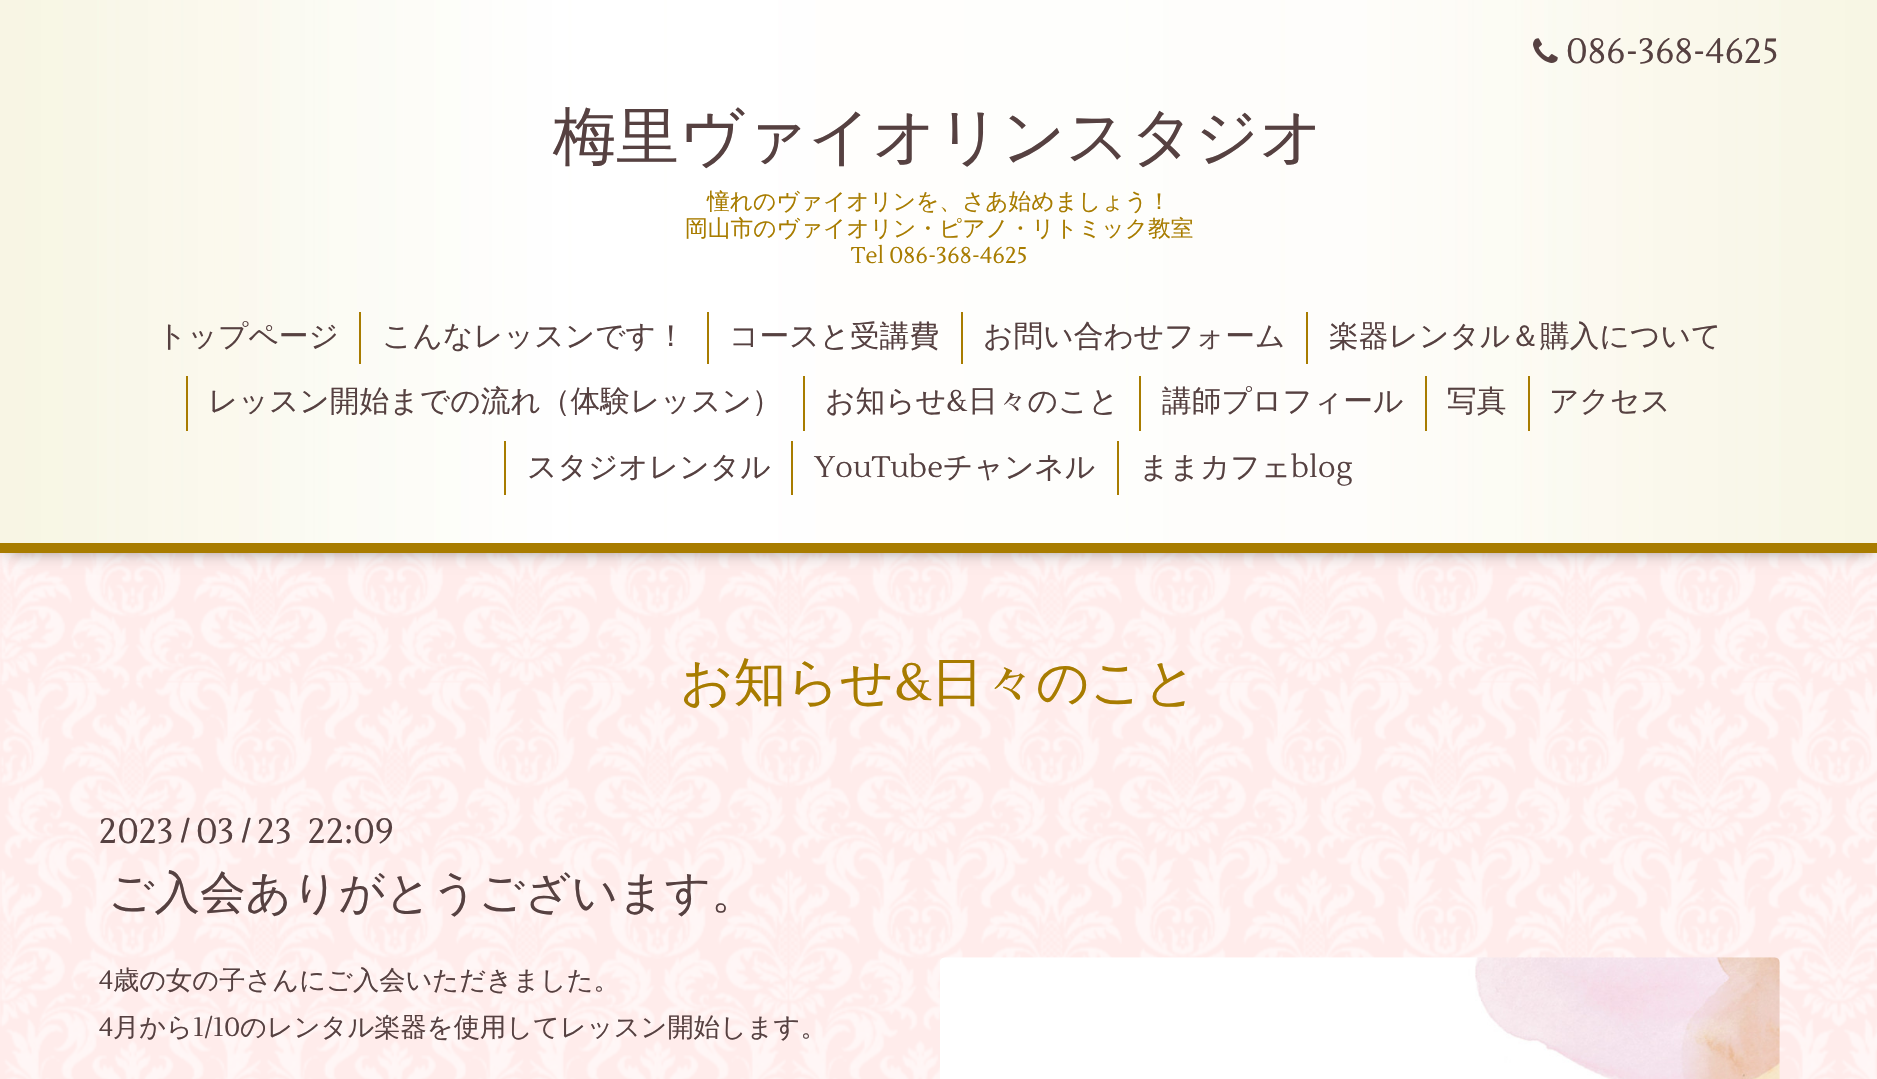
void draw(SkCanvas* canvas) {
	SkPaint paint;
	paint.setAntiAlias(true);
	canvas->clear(0xffffeceb);
	canvas->drawImageRect(SkImages::DeferredFromEncodedData(SkData::MakeFromFileName("img1.png")), SkRect::MakeXYWH(0, 553, 1877, 526), SkSamplingOptions());
	paint.setColor(0x99000000);
	paint.setMaskFilter(SkMaskFilter::MakeBlur(kNormal_SkBlurStyle, 9));
	canvas->drawRect(SkRect::MakeXYWH(7, 9, 1864, 539), paint);
	paint.setMaskFilter(nullptr);
	canvas->drawImageRect(SkImages::DeferredFromEncodedData(SkData::MakeFromFileName("img2.png")), SkRect::MakeXYWH(0, 0, 1877, 543), SkSamplingOptions());
	paint.setColor(0xffa87c00);
	canvas->drawRect(SkRect::MakeXYWH(0, 543, 1877, 10), paint);
	canvas->drawImageRect(SkImages::DeferredFromEncodedData(SkData::MakeFromFileName("img3.png")), SkRect::MakeXYWH(1533, 38, 25, 25), SkSamplingOptions());
	SkFont f1(fontMgr->matchFamilyStyle("Lustria", SkFontStyle::Normal()), 35);
	f1.setSubpixel(true);
	paint.setColor(0xff564141);
	canvas->drawString("086-368-4625", 1566, 63, f1, paint);
	SkFont f2(fontMgr->matchFamilyStyle("WenQuanYi Zen Hei", SkFontStyle(500, SkFontStyle::kNormal_Width, SkFontStyle::kUpright_Slant)), 63);
	f2.setSubpixel(true);
	canvas->drawString("梅里ヴァイオリンスタジオ", 553, 158, f2, paint);
	SkFont f3(fontMgr->matchFamilyStyle("WenQuanYi Zen Hei", SkFontStyle(500, SkFontStyle::kNormal_Width, SkFontStyle::kUpright_Slant)), 22.75);
	f3.setSubpixel(true);
	paint.setColor(0xffa87c00);
	canvas->drawString("憧れのヴァイオリンを、さあ始めましょう！", 707, 209, f3, paint);
	canvas->drawString("岡山市のヴァイオリン・ピアノ・リトミック教室", 685, 236, f3, paint);
	SkFont f4(fontMgr->matchFamilyStyle("Lustria", SkFontStyle::Normal()), 22.75);
	f4.setSubpixel(true);
	canvas->drawString("Tel 086-368-4625", 851, 263, f4, paint);
	SkFont f5(fontMgr->matchFamilyStyle("WenQuanYi Zen Hei", SkFontStyle(500, SkFontStyle::kNormal_Width, SkFontStyle::kUpright_Slant)), 29.75);
	f5.setSubpixel(true);
	paint.setColor(0xff564141);
	canvas->drawString("トップページ", 157, 346, f5, paint);
	paint.setColor(0xffa87c00);
	canvas->drawRect(SkRect::MakeXYWH(359, 312, 2, 52), paint);
	paint.setColor(0xff564141);
	canvas->drawString("こんなレッスンです！", 382, 346, f5, paint);
	paint.setColor(0xffa87c00);
	canvas->drawRect(SkRect::MakeXYWH(707, 312, 2, 52), paint);
	paint.setColor(0xff564141);
	canvas->drawString("コースと受講費", 729, 346, f5, paint);
	paint.setColor(0xffa87c00);
	canvas->drawRect(SkRect::MakeXYWH(961, 312, 2, 52), paint);
	paint.setColor(0xff564141);
	canvas->drawString("お問い合わせフォーム", 983, 346, f5, paint);
	paint.setColor(0xffa87c00);
	canvas->drawRect(SkRect::MakeXYWH(1306, 312, 2, 52), paint);
	paint.setColor(0xff564141);
	canvas->drawString("楽器レンタル＆購入について", 1329, 346, f5, paint);
	paint.setColor(0xffa87c00);
	canvas->drawRect(SkRect::MakeXYWH(186, 376, 2, 55), paint);
	paint.setColor(0xff564141);
	canvas->drawString("レッスン開始までの流れ（体験レッスン）", 208, 411, f5, paint);
	paint.setColor(0xffa87c00);
	canvas->drawRect(SkRect::MakeXYWH(803, 376, 2, 55), paint);
	paint.setColor(0xff564141);
	canvas->drawString("お知らせ", 825, 411, f5, paint);
	SkFont f6(fontMgr->matchFamilyStyle("Lustria", SkFontStyle::Normal()), 29.75);
	f6.setSubpixel(true);
	canvas->drawString("&", 946, 411, f6, paint);
	canvas->drawString("日々のこと", 968, 411, f5, paint);
	paint.setColor(0xffa87c00);
	canvas->drawRect(SkRect::MakeXYWH(1139, 376, 2, 55), paint);
	paint.setColor(0xff564141);
	canvas->drawString("講師プロフィール", 1162, 411, f5, paint);
	paint.setColor(0xffa87c00);
	canvas->drawRect(SkRect::MakeXYWH(1425, 376, 2, 55), paint);
	paint.setColor(0xff564141);
	canvas->drawString("写真", 1447, 411, f5, paint);
	paint.setColor(0xffa87c00);
	canvas->drawRect(SkRect::MakeXYWH(1528, 376, 2, 55), paint);
	paint.setColor(0xff564141);
	canvas->drawString("アクセス", 1549, 411, f5, paint);
	paint.setColor(0xffa87c00);
	canvas->drawRect(SkRect::MakeXYWH(504, 441, 2, 54), paint);
	paint.setColor(0xff564141);
	canvas->drawString("スタジオレンタル", 527, 477, f5, paint);
	paint.setColor(0xffa87c00);
	canvas->drawRect(SkRect::MakeXYWH(791, 441, 2, 54), paint);
	paint.setColor(0xff564141);
	canvas->drawString("YouTube", 814, 477, f6, paint);
	canvas->drawString("チャンネル", 943, 477, f5, paint);
	paint.setColor(0xffa87c00);
	canvas->drawRect(SkRect::MakeXYWH(1117, 441, 2, 54), paint);
	paint.setColor(0xff564141);
	canvas->drawString("ままカフェ", 1139, 477, f5, paint);
	canvas->drawString("blog", 1291, 477, f6, paint);
	SkFont f7(fontMgr->matchFamilyStyle("WenQuanYi Zen Hei", SkFontStyle(500, SkFontStyle::kNormal_Width, SkFontStyle::kUpright_Slant)), 52.5);
	f7.setSubpixel(true);
	paint.setColor(0xffa87c00);
	canvas->drawString("お知らせ", 680, 700, f7, paint);
	SkFont f8(fontMgr->matchFamilyStyle("Lustria", SkFontStyle::Normal()), 52.5);
	f8.setSubpixel(true);
	canvas->drawString("&", 894, 700, f8, paint);
	canvas->drawString("日々のこと", 931, 700, f7, paint);
	paint.setColor(0xff564141);
	canvas->drawString("2023", 99, 843, f1, paint);
	SkFont f9(fontMgr->matchFamilyStyle("Lustria", SkFontStyle::Bold()), 28);
	f9.setSubpixel(true);
	canvas->drawString("/", 180, 840, f9, paint);
	canvas->drawString("03", 196, 843, f1, paint);
	canvas->drawString("/", 241, 840, f9, paint);
	canvas->drawString("23  22:09", 257, 843, f1, paint);
	SkFont f10(fontMgr->matchFamilyStyle("WenQuanYi Zen Hei", SkFontStyle(500, SkFontStyle::kNormal_Width, SkFontStyle::kUpright_Slant)), 45.5);
	f10.setSubpixel(true);
	canvas->drawString("ご入会ありがとうございます。", 108, 908, f10, paint);
	SkFont f11(fontMgr->matchFamilyStyle("Lustria", SkFontStyle::Normal()), 26.25);
	f11.setSubpixel(true);
	canvas->drawString("4", 99, 989, f11, paint);
	SkFont f12(fontMgr->matchFamilyStyle("WenQuanYi Zen Hei", SkFontStyle(500, SkFontStyle::kNormal_Width, SkFontStyle::kUpright_Slant)), 26.25);
	f12.setSubpixel(true);
	canvas->drawString("歳の女の子さんにご入会いただきました。", 113, 989, f12, paint);
	canvas->drawString("4", 99, 1036, f11, paint);
	canvas->drawString("月から", 113, 1036, f12, paint);
	canvas->drawString("1/10", 193, 1036, f11, paint);
	canvas->drawString("のレンタル楽器を使用してレッスン開始します。", 240, 1036, f12, paint);
	canvas->drawImageRect(SkImages::DeferredFromEncodedData(SkData::MakeFromFileName("img4.png")), SkRect::MakeXYWH(940, 957, 840, 122), SkSamplingOptions());
}
